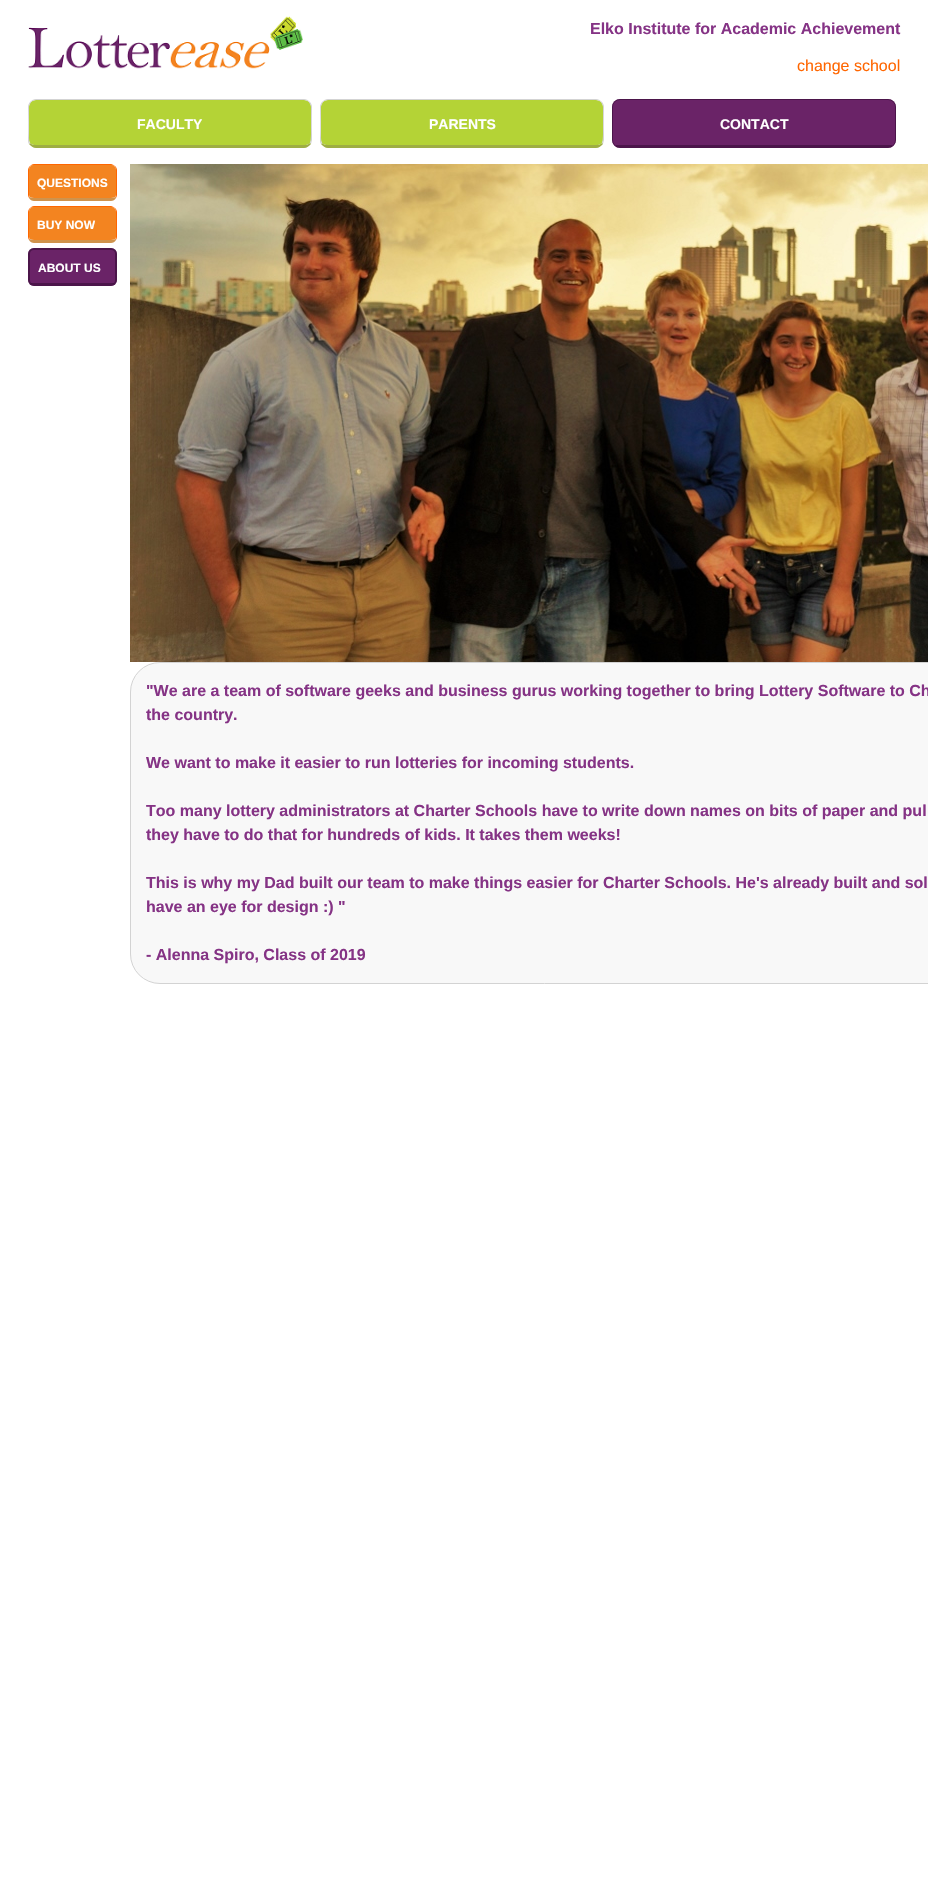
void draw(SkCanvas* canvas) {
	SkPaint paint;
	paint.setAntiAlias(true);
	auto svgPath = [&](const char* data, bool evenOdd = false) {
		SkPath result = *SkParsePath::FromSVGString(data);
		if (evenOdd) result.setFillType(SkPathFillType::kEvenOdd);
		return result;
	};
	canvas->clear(0xffffffff);
	canvas->drawImageRect(SkImages::DeferredFromEncodedData(SkData::MakeFromFileName("img1.png")), SkRect::MakeXYWH(28, 16, 275, 53), SkSamplingOptions());
	SkFont f1(fontMgr->matchFamilyStyle("Liberation Sans", SkFontStyle::Bold()), 16);
	f1.setSubpixel(true);
	paint.setColor(0xff853385);
	canvas->drawString("Elko Institute for Academic Achievement", 590, 34, f1, paint);
	SkFont f2(fontMgr->matchFamilyStyle("Liberation Sans", SkFontStyle::Normal()), 16);
	f2.setSubpixel(true);
	paint.setColor(0xffff6600);
	canvas->drawString("change school", 797, 71, f2, paint);
	paint.setColor(0xffb4d336);
	canvas->drawPath(svgPath("M36 100H304C308 100 311 103 311 107V140C311 143 308 145 304 145H36C32 145 29 143 29 140V107C29 103 32 100 36 100Z"), paint);
	paint.setColor(0xffd3d3d3);
	canvas->drawPath(svgPath("M36 99C34 99 32 100 30 102H31C32 101 34 100 36 100H304C306 100 308 101 309 102H310C308 100 306 99 304 99Z"), paint);
	canvas->drawPath(svgPath("M312 140V107C312 105 311 103 310 102H309L311 106C311 109 312 140 310 143L311 144Z"), paint);
	paint.setColor(0xff9eae43);
	canvas->drawPath(svgPath("M36 148H304C307 148 309 146 311 144L310 143C309 144 307 145 304 145H36C33 145 31 144 30 143L29 144C31 146 33 148 36 148Z"), paint);
	paint.setColor(0xffd3d3d3);
	canvas->drawPath(svgPath("M28 107V140C28 141 28 143 29 144L30 143C28 140 29 109 29 106L31 102H30C29 103 28 105 28 107Z"), paint);
	SkFont f3(fontMgr->matchFamilyStyle("Liberation Sans", SkFontStyle::Bold()), 14);
	f3.setSubpixel(true);
	paint.setColor(0xffffffff);
	canvas->drawString("FACULTY", 137, 129, f3, paint);
	paint.setColor(0xffb4d336);
	canvas->drawPath(svgPath("M328 100H596C600 100 603 103 603 107V140C603 143 600 145 596 145H328C324 145 321 143 321 140V107C321 103 324 100 328 100Z"), paint);
	paint.setColor(0xffd3d3d3);
	canvas->drawPath(svgPath("M328 99C326 99 324 100 322 102H323C324 101 326 100 328 100H596C598 100 600 101 601 102H602C600 100 598 99 596 99Z"), paint);
	canvas->drawPath(svgPath("M604 140V107C604 105 603 103 602 102H601L603 106C603 109 604 140 602 143L603 144Z"), paint);
	paint.setColor(0xff9eae43);
	canvas->drawPath(svgPath("M328 148H596C599 148 601 146 603 144L602 143C601 144 599 145 596 145H328C325 145 323 144 322 143L321 144C323 146 325 148 328 148Z"), paint);
	paint.setColor(0xffd3d3d3);
	canvas->drawPath(svgPath("M320 107V140C320 141 320 143 321 144L322 143C320 140 321 109 321 106L323 102H322C321 103 320 105 320 107Z"), paint);
	paint.setColor(0xffffffff);
	canvas->drawString("PARENTS", 429, 129, f3, paint);
	paint.setColor(0xff6a2367);
	canvas->drawRoundRect(SkRect::MakeXYWH(612, 99, 284, 49), 8, 8, paint);
	paint.setStroke(true);
	paint.setStrokeWidth(1);
	paint.setColor(0xa63a0c3a);
	canvas->drawRoundRect(SkRect::MakeXYWH(612.5, 99.5, 283, 48), 7.5, 7.5, paint);
	paint.setStroke(false);
	canvas->drawRect(SkRect::MakeXYWH(616, 145, 276, 2), paint);
	paint.setColor(0xffffffff);
	canvas->drawString("CONTACT", 720, 129, f3, paint);
	paint.setColor(0xfff38420);
	canvas->drawPath(svgPath("M34 165H111C114 165 116 167 116 170V195C116 197 114 198 111 198H34C31 198 29 197 29 195V170C29 167 31 165 34 165Z"), paint);
	paint.setColor(0xffff6600);
	canvas->drawPath(svgPath("M34 164C32 164 31 165 30 166L33 165H112L115 166C114 165 112 164 111 164Z"), paint);
	canvas->drawPath(svgPath("M117 195V170C117 168.5 116 167 115 166L114.5 166.5C115.5 167 116 168.5 116 170V195L115.5 196.5L116 198C116.5 197 117 196 117 195Z"), paint);
	paint.setColor(0xffcf934c);
	canvas->drawPath(svgPath("M34 201H111C113 201 115 200 116 198V197L112 198H33L29 197V198C30 200 32 201 34 201Z"), paint);
	paint.setColor(0xffff6600);
	canvas->drawPath(svgPath("M28 170V195C28 196 28.5 197 29 198L29.5 196.5L29 195V170C29 168.5 29.5 167 30.5 166.5L30 166C29 167 28 168.5 28 170Z"), paint);
	SkFont f4(fontMgr->matchFamilyStyle("Liberation Sans", SkFontStyle::Bold()), 12);
	f4.setSubpixel(true);
	paint.setColor(0xffffffff);
	canvas->drawString("QUESTIONS", 37, 187, f4, paint);
	paint.setColor(0xfff38420);
	canvas->drawPath(svgPath("M34 207H111C114 207 116 209 116 212V237C116 239 114 240 111 240H34C31 240 29 239 29 237V212C29 209 31 207 34 207Z"), paint);
	paint.setColor(0xffff6600);
	canvas->drawPath(svgPath("M34 206C32 206 31 207 30 208L33 207H112L115 208C114 207 112 206 111 206Z"), paint);
	canvas->drawPath(svgPath("M117 237V212C117 210.5 116 209 115 208L114.5 208.5C115.5 209 116 210.5 116 212V237L115.5 238.5L116 240C116.5 239 117 238 117 237Z"), paint);
	paint.setColor(0xffcf934c);
	canvas->drawPath(svgPath("M34 243H111C113 243 115 242 116 240V239L112 240H33L29 239V240C30 242 32 243 34 243Z"), paint);
	paint.setColor(0xffff6600);
	canvas->drawPath(svgPath("M28 212V237C28 238 28.5 239 29 240L29.5 238.5L29 237V212C29 210.5 29.5 209 30.5 208.5L30 208C29 209 28 210.5 28 212Z"), paint);
	paint.setColor(0xffffffff);
	canvas->drawString("BUY NOW", 37, 229, f4, paint);
	paint.setColor(0xff6a2367);
	canvas->drawRoundRect(SkRect::MakeXYWH(28, 248, 89, 38), 6, 6, paint);
	paint.setStroke(true);
	paint.setStrokeWidth(2);
	paint.setColor(0xa63a0c3a);
	canvas->drawRoundRect(SkRect::MakeXYWH(29, 249, 87, 36), 5, 5, paint);
	paint.setStroke(false);
	canvas->drawRect(SkRect::MakeXYWH(31, 283, 83, 1), paint);
	paint.setColor(0xffffffff);
	canvas->drawString("ABOUT US", 38, 272, f4, paint);
	canvas->drawImageRect(SkImages::DeferredFromEncodedData(SkData::MakeFromFileName("img2.png")), SkRect::MakeXYWH(130, 164, 798, 498), SkSamplingOptions());
	paint.setColor(0xfff8f8f8);
	canvas->drawRoundRect(SkRect::MakeXYWH(130.5, 662.5, 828, 321), 29.5, 29.5, paint);
	paint.setStroke(true);
	paint.setStrokeWidth(1);
	paint.setColor(0xffd3d3d3);
	canvas->drawRoundRect(SkRect::MakeXYWH(130.5, 662.5, 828, 321), 29.5, 29.5, paint);
	paint.setStroke(false);
	paint.setColor(0xff853385);
	canvas->drawString("\"We are a team of software geeks and business gurus working together to bring Lottery Software to Ch", 146, 696, f1, paint);
	canvas->drawString("the country.", 146, 720, f1, paint);
	canvas->drawString("We want to make it easier to run lotteries for incoming students.", 146, 768, f1, paint);
	canvas->drawString("Too many lottery administrators at Charter Schools have to write down names on bits of paper and pul", 146, 816, f1, paint);
	canvas->drawString("they have to do that for hundreds of kids. It takes them weeks!", 146, 840, f1, paint);
	canvas->drawString("This is why my Dad built our team to make things easier for Charter Schools. He's already built and sol", 146, 888, f1, paint);
	canvas->drawString("have an eye for design :) \"", 146, 912, f1, paint);
	canvas->drawString("- Alenna Spiro, Class of 2019", 146, 960, f1, paint);
}
